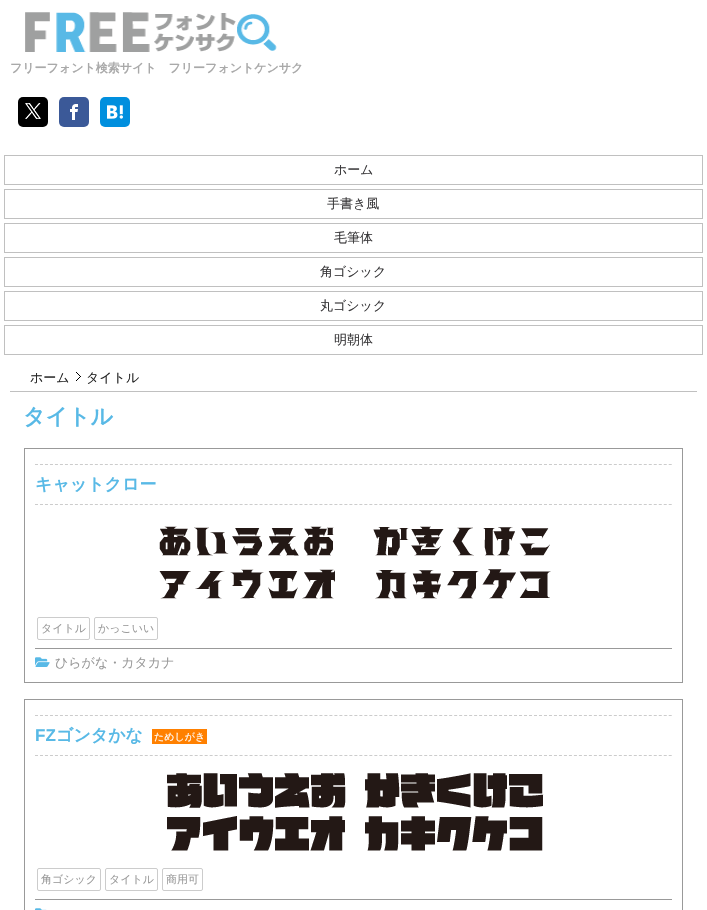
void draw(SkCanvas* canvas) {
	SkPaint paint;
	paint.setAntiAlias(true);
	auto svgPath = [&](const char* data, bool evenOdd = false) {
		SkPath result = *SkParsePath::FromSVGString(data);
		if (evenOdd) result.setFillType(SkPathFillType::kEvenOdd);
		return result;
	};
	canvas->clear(0xffffffff);
	canvas->drawImageRect(SkImages::DeferredFromEncodedData(SkData::MakeFromFileName("img1.png")), SkRect::MakeXYWH(25, 12, 252, 40), SkSamplingOptions());
	SkFont f1(fontMgr->matchFamilyStyle("WenQuanYi Zen Hei", SkFontStyle::Bold()), 12);
	f1.setSubpixel(true);
	paint.setColor(0xffa9a9a9);
	canvas->drawString("フリーフォント検索サイト　フリーフォントケンサク", 10, 72, f1, paint);
	paint.setColor(0xff000000);
	canvas->drawRoundRect(SkRect::MakeXYWH(18, 97, 30, 30), 5, 5, paint);
	canvas->drawImageRect(SkImages::DeferredFromEncodedData(SkData::MakeFromFileName("img2.png")), SkRect::MakeXYWH(25, 103, 16, 16), SkSamplingOptions());
	paint.setColor(0xff3b5998);
	canvas->drawRoundRect(SkRect::MakeXYWH(59, 97, 30, 30), 5, 5, paint);
	canvas->drawImageRect(SkImages::DeferredFromEncodedData(SkData::MakeFromFileName("img3.png")), SkRect::MakeXYWH(70, 104, 8, 16), SkSamplingOptions());
	paint.setColor(0xff008fde);
	canvas->drawRoundRect(SkRect::MakeXYWH(100, 97, 30, 30), 5, 5, paint);
	canvas->drawImageRect(SkImages::DeferredFromEncodedData(SkData::MakeFromFileName("img4.png")), SkRect::MakeXYWH(107, 105, 16, 14), SkSamplingOptions());
	paint.setStroke(true);
	paint.setStrokeWidth(1);
	paint.setColor(0xffc0c0c0);
	canvas->drawRect(SkRect::MakeXYWH(4.5, 155.5, 698, 29), paint);
	SkFont f2(fontMgr->matchFamilyStyle("WenQuanYi Zen Hei", SkFontStyle(500, SkFontStyle::kNormal_Width, SkFontStyle::kUpright_Slant)), 13);
	f2.setSubpixel(true);
	paint.setStroke(false);
	paint.setColor(0xff383739);
	canvas->drawString("ホーム", 334, 174, f2, paint);
	paint.setStroke(true);
	paint.setColor(0xffc0c0c0);
	canvas->drawRect(SkRect::MakeXYWH(4.5, 189.5, 698, 29), paint);
	paint.setStroke(false);
	paint.setColor(0xff383739);
	canvas->drawString("手書き風", 327, 208, f2, paint);
	paint.setStroke(true);
	paint.setColor(0xffc0c0c0);
	canvas->drawRect(SkRect::MakeXYWH(4.5, 223.5, 698, 29), paint);
	paint.setStroke(false);
	paint.setColor(0xff383739);
	canvas->drawString("毛筆体", 334, 242, f2, paint);
	paint.setStroke(true);
	paint.setColor(0xffc0c0c0);
	canvas->drawRect(SkRect::MakeXYWH(4.5, 257.5, 698, 29), paint);
	paint.setStroke(false);
	paint.setColor(0xff383739);
	canvas->drawString("角ゴシック", 320, 276, f2, paint);
	paint.setStroke(true);
	paint.setColor(0xffc0c0c0);
	canvas->drawRect(SkRect::MakeXYWH(4.5, 291.5, 698, 29), paint);
	paint.setStroke(false);
	paint.setColor(0xff383739);
	canvas->drawString("丸ゴシック", 320, 310, f2, paint);
	paint.setStroke(true);
	paint.setColor(0xffc0c0c0);
	canvas->drawRect(SkRect::MakeXYWH(4.5, 325.5, 698, 29), paint);
	paint.setStroke(false);
	paint.setColor(0xff383739);
	canvas->drawString("明朝体", 334, 344, f2, paint);
	paint.setColor(0xffc0c0c0);
	canvas->drawRect(SkRect::MakeXYWH(10, 391, 687, 1), paint);
	paint.setColor(0xff262626);
	canvas->drawString("ホーム", 30, 382, f2, paint);
	canvas->drawImageRect(SkImages::DeferredFromEncodedData(SkData::MakeFromFileName("img5.png")), SkRect::MakeXYWH(76, 372, 5, 9), SkSamplingOptions());
	canvas->drawString("タイトル", 86, 382, f2, paint);
	SkFont f3(fontMgr->matchFamilyStyle("WenQuanYi Zen Hei", SkFontStyle::Bold()), 22);
	f3.setSubpixel(true);
	paint.setColor(0xff58b9e6);
	canvas->drawString("タイトル", 23, 424, f3, paint);
	paint.setStroke(true);
	paint.setColor(0xff999999);
	canvas->drawRect(SkRect::MakeXYWH(24.5, 448.5, 658, 234), paint);
	paint.setColor(0xffcccccc);
	paint.setPathEffect(SkDashPathEffect::Make({{3, 1.99f}}, 0));
	canvas->drawPath(svgPath("M35 464.5H672"), paint);
	paint.setPathEffect(nullptr);
	paint.setPathEffect(SkDashPathEffect::Make({{3, 1.99f}}, 0));
	canvas->drawPath(svgPath("M35 504.5H672"), paint);
	paint.setPathEffect(nullptr);
	SkFont f4(fontMgr->matchFamilyStyle("WenQuanYi Zen Hei", SkFontStyle::Bold()), 17);
	f4.setSubpixel(true);
	paint.setStroke(false);
	paint.setColor(0xff58b9e6);
	canvas->drawString("キャットクロー", 35, 490, f4, paint);
	canvas->drawImageRect(SkImages::DeferredFromEncodedData(SkData::MakeFromFileName("img6.png")), SkRect::MakeXYWH(159, 526, 392, 73), SkSamplingOptions());
	paint.setStroke(true);
	paint.setColor(0xffcccccc);
	canvas->drawRoundRect(SkRect::MakeXYWH(37.5, 617.5, 52, 22), 1.5, 1.5, paint);
	SkFont f5(fontMgr->matchFamilyStyle("WenQuanYi Zen Hei", SkFontStyle(500, SkFontStyle::kNormal_Width, SkFontStyle::kUpright_Slant)), 11);
	f5.setSubpixel(true);
	paint.setStroke(false);
	paint.setColor(0xff999999);
	canvas->drawString("タイトル", 41, 632, f5, paint);
	paint.setStroke(true);
	paint.setColor(0xffcccccc);
	canvas->drawRoundRect(SkRect::MakeXYWH(94.5, 617.5, 63, 22), 1.5, 1.5, paint);
	paint.setStroke(false);
	paint.setColor(0xff999999);
	canvas->drawString("かっこいい", 98, 632, f5, paint);
	canvas->drawRect(SkRect::MakeXYWH(35, 648, 637, 1), paint);
	canvas->drawImageRect(SkImages::DeferredFromEncodedData(SkData::MakeFromFileName("img7.png")), SkRect::MakeXYWH(35, 657, 15, 10), SkSamplingOptions());
	canvas->drawString("ひらがな・カタカナ", 55, 667, f2, paint);
	paint.setStroke(true);
	canvas->drawRect(SkRect::MakeXYWH(24.5, 699.5, 658, 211), paint);
	paint.setColor(0xffcccccc);
	paint.setPathEffect(SkDashPathEffect::Make({{3, 1.99f}}, 0));
	canvas->drawPath(svgPath("M35 715.5H672"), paint);
	paint.setPathEffect(nullptr);
	paint.setPathEffect(SkDashPathEffect::Make({{3, 1.99f}}, 0));
	canvas->drawPath(svgPath("M35 755.5H672"), paint);
	paint.setPathEffect(nullptr);
	SkFont f6(fontMgr->matchFamilyStyle("Liberation Sans", SkFontStyle::Bold()), 17);
	f6.setSubpixel(true);
	paint.setStroke(false);
	paint.setColor(0xff58b9e6);
	canvas->drawString("FZ", 35, 741, f6, paint);
	canvas->drawString("ゴンタかな", 56, 741, f4, paint);
	paint.setColor(0xffff8000);
	canvas->drawRect(SkRect::MakeXYWH(152, 729, 55, 15), paint);
	SkFont f7(fontMgr->matchFamilyStyle("WenQuanYi Zen Hei", SkFontStyle(500, SkFontStyle::kNormal_Width, SkFontStyle::kUpright_Slant)), 10);
	f7.setSubpixel(true);
	paint.setColor(0xffffffff);
	canvas->drawString("ためしがき", 154, 740, f7, paint);
	canvas->drawImageRect(SkImages::DeferredFromEncodedData(SkData::MakeFromFileName("img8.png")), SkRect::MakeXYWH(167, 773, 377, 78), SkSamplingOptions());
	paint.setStroke(true);
	paint.setColor(0xffcccccc);
	canvas->drawRoundRect(SkRect::MakeXYWH(37.5, 868.5, 63, 22), 1.5, 1.5, paint);
	paint.setStroke(false);
	paint.setColor(0xff999999);
	canvas->drawString("角ゴシック", 41, 883, f5, paint);
	paint.setStroke(true);
	paint.setColor(0xffcccccc);
	canvas->drawRoundRect(SkRect::MakeXYWH(105.5, 868.5, 52, 22), 1.5, 1.5, paint);
	paint.setStroke(false);
	paint.setColor(0xff999999);
	canvas->drawString("タイトル", 109, 883, f5, paint);
	paint.setStroke(true);
	paint.setColor(0xffcccccc);
	canvas->drawRoundRect(SkRect::MakeXYWH(162.5, 868.5, 40, 22), 1.5, 1.5, paint);
	paint.setStroke(false);
	paint.setColor(0xff999999);
	canvas->drawString("商用可", 166, 883, f5, paint);
	canvas->drawRect(SkRect::MakeXYWH(35, 899, 637, 1), paint);
	canvas->drawImageRect(SkImages::DeferredFromEncodedData(SkData::MakeFromFileName("img9.png")), SkRect::MakeXYWH(35, 908, 12, 2), SkSamplingOptions());
}
